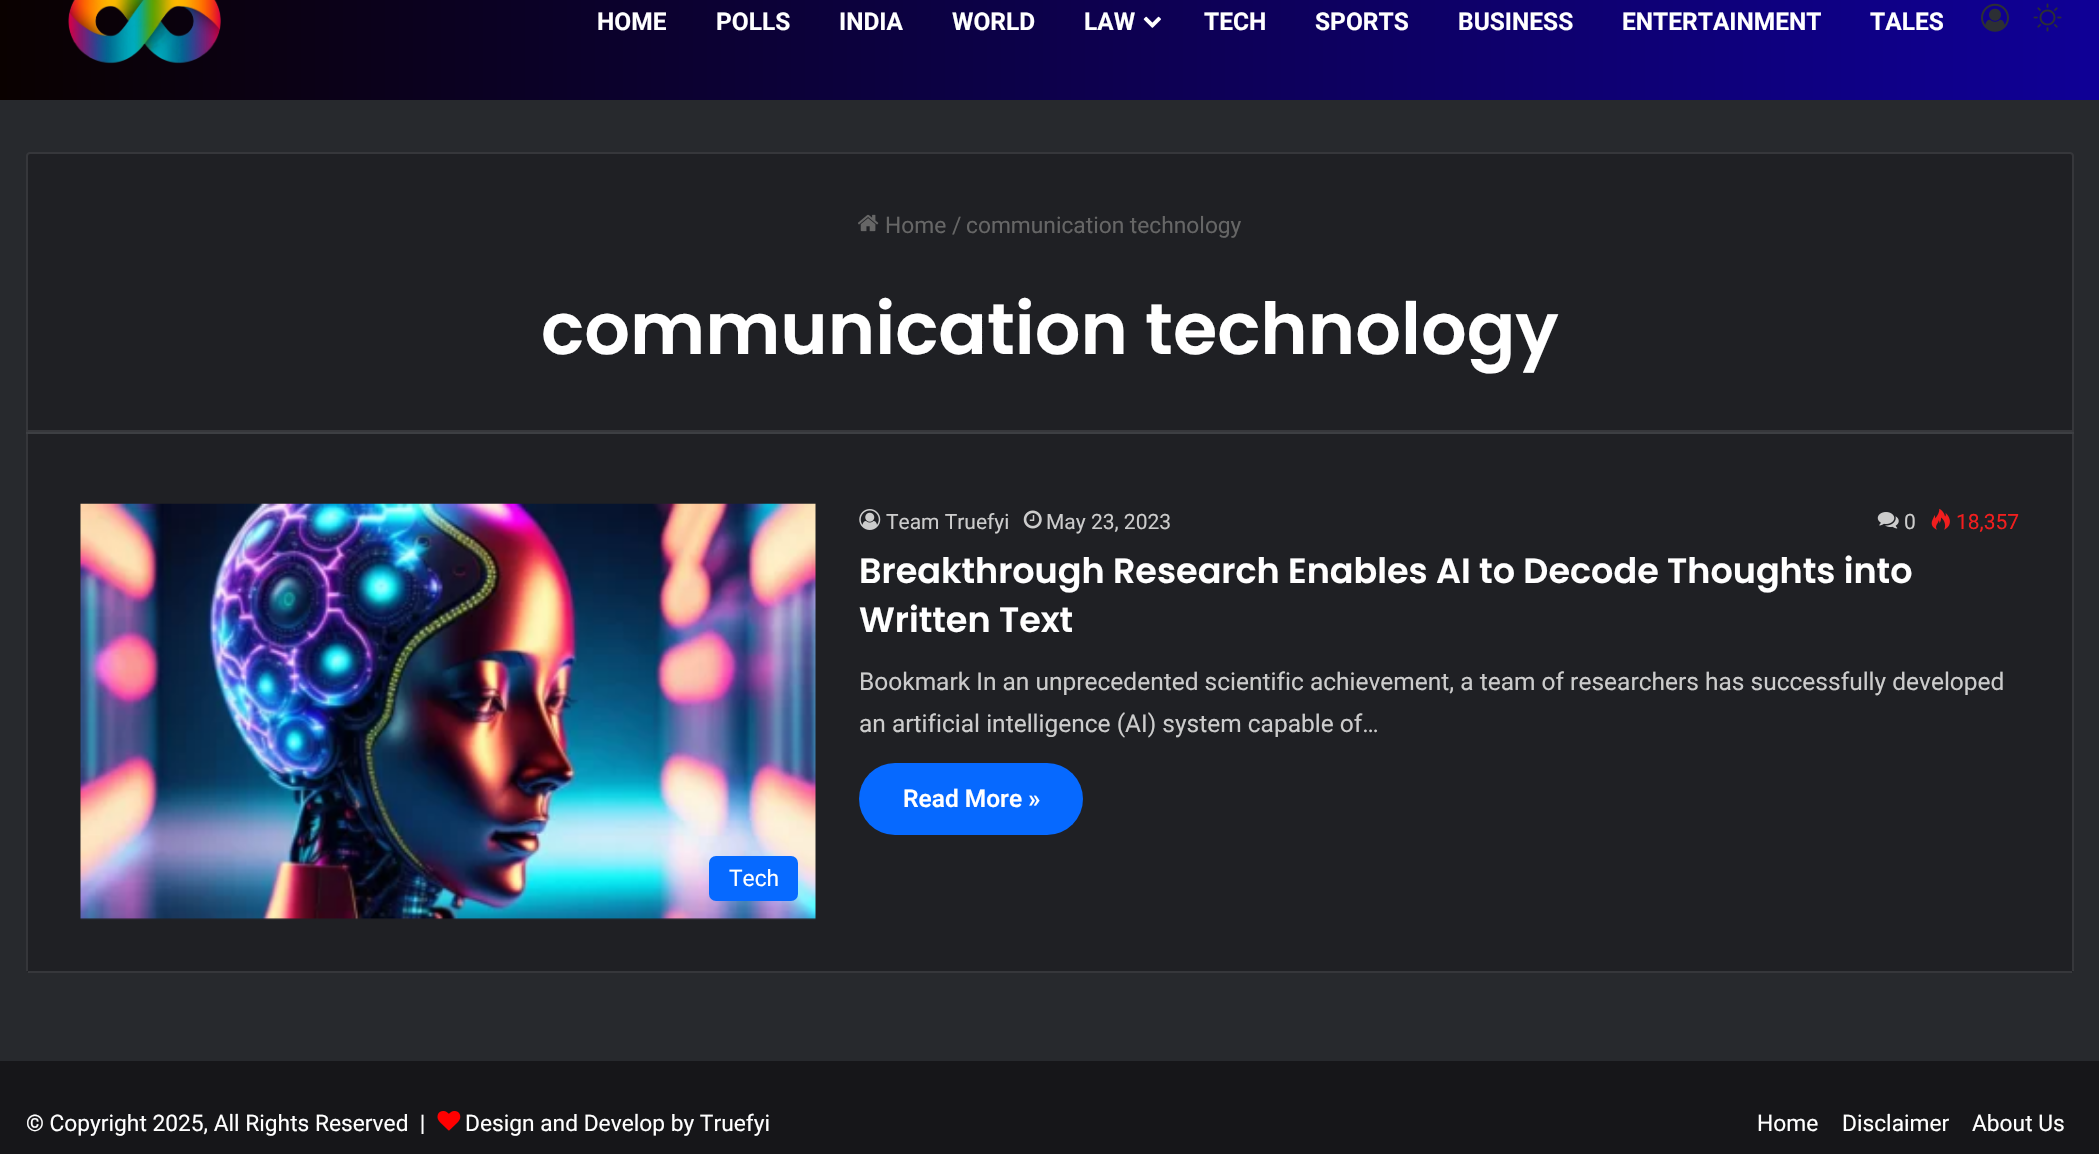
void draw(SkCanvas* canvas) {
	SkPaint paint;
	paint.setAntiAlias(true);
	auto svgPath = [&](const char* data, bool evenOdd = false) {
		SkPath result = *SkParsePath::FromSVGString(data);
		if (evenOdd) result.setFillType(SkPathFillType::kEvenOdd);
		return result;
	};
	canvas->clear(0xff27292d);
	{
		const SkColor colors[] = {0xff0a0100, 0xff0f0096};
		const float stops[] = {0, 1};
		const SkPoint ends[] = {{0, 21}, {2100, 21}};
		paint.setShader(SkGradientShader::MakeLinear(ends, colors, stops, 2, SkTileMode::kClamp));
		paint.setAlpha(255);
	}
	canvas->drawRect(SkRect::MakeXYWH(0, 0, 2099, 100), paint);
	canvas->drawImageRect(SkImages::DeferredFromEncodedData(SkData::MakeFromFileName("img1.png")), SkRect::MakeXYWH(68, 0, 153, 64), SkSamplingOptions());
	SkFont f1(fontMgr->matchFamilyStyle("Roboto", SkFontStyle::Bold()), 24.5);
	f1.setSubpixel(true);
	paint.setShader(nullptr);
	paint.setColor(0xffffffff);
	canvas->drawString("HOME", 597, 30, f1, paint);
	canvas->drawString("POLLS", 716, 30, f1, paint);
	canvas->drawString("INDIA", 839, 30, f1, paint);
	canvas->drawString("WORLD", 952, 30, f1, paint);
	canvas->drawString("LAW", 1084, 30, f1, paint);
	canvas->drawImageRect(SkImages::DeferredFromEncodedData(SkData::MakeFromFileName("img2.png")), SkRect::MakeXYWH(1143, 16, 18, 12), SkSamplingOptions());
	canvas->drawString("TECH", 1204, 30, f1, paint);
	canvas->drawString("SPORTS", 1315, 30, f1, paint);
	canvas->drawString("BUSINESS", 1458, 30, f1, paint);
	canvas->drawString("ENTERTAINMENT", 1622, 30, f1, paint);
	canvas->drawString("TALES", 1870, 30, f1, paint);
	canvas->drawImageRect(SkImages::DeferredFromEncodedData(SkData::MakeFromFileName("img3.png")), SkRect::MakeXYWH(1981, 3, 28, 29), SkSamplingOptions());
	canvas->drawImageRect(SkImages::DeferredFromEncodedData(SkData::MakeFromFileName("img4.png")), SkRect::MakeXYWH(2033, 3, 29, 29), SkSamplingOptions());
	paint.setColor(0xff1f2024);
	canvas->drawPath(svgPath("M30 152H2070C2072 152 2074 154 2074 156V432H26V156C26 154 28 152 30 152Z"), paint);
	paint.setStroke(true);
	paint.setStrokeWidth(2);
	paint.setColor(0x1affffff);
	canvas->drawPath(svgPath("M30 153H2070C2071.5 153 2073 154.5 2073 156V431H27V156C27 154.5 28.5 153 30 153Z"), paint);
	canvas->drawImageRect(SkImages::DeferredFromEncodedData(SkData::MakeFromFileName("img5.png")), SkRect::MakeXYWH(858, 214, 21, 18), SkSamplingOptions());
	SkFont f2(fontMgr->matchFamilyStyle("Roboto", SkFontStyle::Normal()), 22.75);
	f2.setSubpixel(true);
	paint.setStroke(false);
	paint.setColor(0xff666666);
	canvas->drawString("Home", 885, 233, f2, paint);
	canvas->drawString("/", 952, 233, f2, paint);
	canvas->drawString("communication technology", 966, 233, f2, paint);
	SkFont f3(fontMgr->matchFamilyStyle("Poppins", SkFontStyle(600, SkFontStyle::kNormal_Width, SkFontStyle::kUpright_Slant)), 71.75);
	f3.setSubpixel(true);
	paint.setColor(0xffffffff);
	canvas->drawString("communication technology", 541, 354, f3, paint);
	paint.setColor(0x1affffff);
	canvas->drawRect(SkRect::MakeXYWH(26, 432, 2048, 2), paint);
	paint.setColor(0xff1f2024);
	canvas->drawPath(svgPath("M26 434H2074V969C2074 971 2072 973 2070 973H30C28 973 26 971 26 969Z"), paint);
	paint.setColor(0x1affffff);
	canvas->drawRect(SkRect::MakeXYWH(2072, 434, 2, 537), paint);
	canvas->drawRect(SkRect::MakeXYWH(28, 971, 2044, 2), paint);
	paint.setColor(0xff35363a);
	canvas->drawRect(SkRect::MakeXYWH(26, 434, 2, 537), paint);
	canvas->drawImageRect(SkImages::DeferredFromEncodedData(SkData::MakeFromFileName("img6.png")), SkRect::MakeXYWH(859, 509, 22, 21), SkSamplingOptions());
	SkFont f4(fontMgr->matchFamilyStyle("Roboto", SkFontStyle::Normal()), 21);
	f4.setSubpixel(true);
	paint.setColor(0xffcccccc);
	canvas->drawString("Team Truefyi", 886, 529, f4, paint);
	canvas->drawImageRect(SkImages::DeferredFromEncodedData(SkData::MakeFromFileName("img7.png")), SkRect::MakeXYWH(1023, 510, 19, 19), SkSamplingOptions());
	canvas->drawString("May 23, 2023", 1046, 529, f4, paint);
	canvas->drawImageRect(SkImages::DeferredFromEncodedData(SkData::MakeFromFileName("img8.png")), SkRect::MakeXYWH(1877, 512, 22, 17), SkSamplingOptions());
	canvas->drawString("0", 1904, 529, f4, paint);
	canvas->drawImageRect(SkImages::DeferredFromEncodedData(SkData::MakeFromFileName("img9.png")), SkRect::MakeXYWH(1931, 508, 19, 22), SkSamplingOptions());
	paint.setColor(0xfff11e1e);
	canvas->drawString("18,357", 1956, 529, f4, paint);
	SkFont f5(fontMgr->matchFamilyStyle("Poppins", SkFontStyle(600, SkFontStyle::kNormal_Width, SkFontStyle::kUpright_Slant)), 35);
	f5.setSubpixel(true);
	paint.setColor(0xffffffff);
	canvas->drawString("Breakthrough Research Enables AI to Decode Thoughts into", 859, 583, f5, paint);
	canvas->drawString("Written Text", 859, 632, f5, paint);
	SkFont f6(fontMgr->matchFamilyStyle("Roboto", SkFontStyle::Normal()), 24.5);
	f6.setSubpixel(true);
	paint.setColor(0xffcccccc);
	canvas->drawString("Bookmark In an unprecedented scientific achievement, a team of researchers has successfully developed", 859, 690, f6, paint);
	canvas->drawString("an artificial intelligence (AI) system capable of…", 859, 732, f6, paint);
	paint.setColor(0xff0669ff);
	canvas->drawRoundRect(SkRect::MakeXYWH(859, 763, 224, 72), 36, 36, paint);
	SkFont f7(fontMgr->matchFamilyStyle("Roboto", SkFontStyle(600, SkFontStyle::kNormal_Width, SkFontStyle::kUpright_Slant)), 24.5);
	f7.setSubpixel(true);
	paint.setColor(0xffffffff);
	canvas->drawString("Read More »", 903, 807, f7, paint);
	canvas->drawImageRect(SkImages::DeferredFromEncodedData(SkData::MakeFromFileName("img10.png")), SkRect::MakeXYWH(80, 503, 736, 417), SkSamplingOptions());
	paint.setColor(0xff0669ff);
	canvas->drawRoundRect(SkRect::MakeXYWH(709, 856, 89, 45), 7, 7, paint);
	paint.setColor(0xffffffff);
	canvas->drawString("Tech", 729, 886, f2, paint);
	paint.setColor(0xff161619);
	canvas->drawRect(SkRect::MakeXYWH(0, 1061, 2099, 93), paint);
	paint.setColor(0xffffffff);
	canvas->drawString("© Copyright 2025, All Rights Reserved  |", 26, 1131, f2, paint);
	canvas->drawImageRect(SkImages::DeferredFromEncodedData(SkData::MakeFromFileName("img11.png")), SkRect::MakeXYWH(437, 1111, 24, 20), SkSamplingOptions());
	canvas->drawString("Design and Develop by Truefyi", 465, 1131, f2, paint);
	canvas->drawString("Home", 1757, 1131, f2, paint);
	canvas->drawString("Disclaimer", 1842, 1131, f2, paint);
	canvas->drawString("About Us", 1972, 1131, f2, paint);
}
